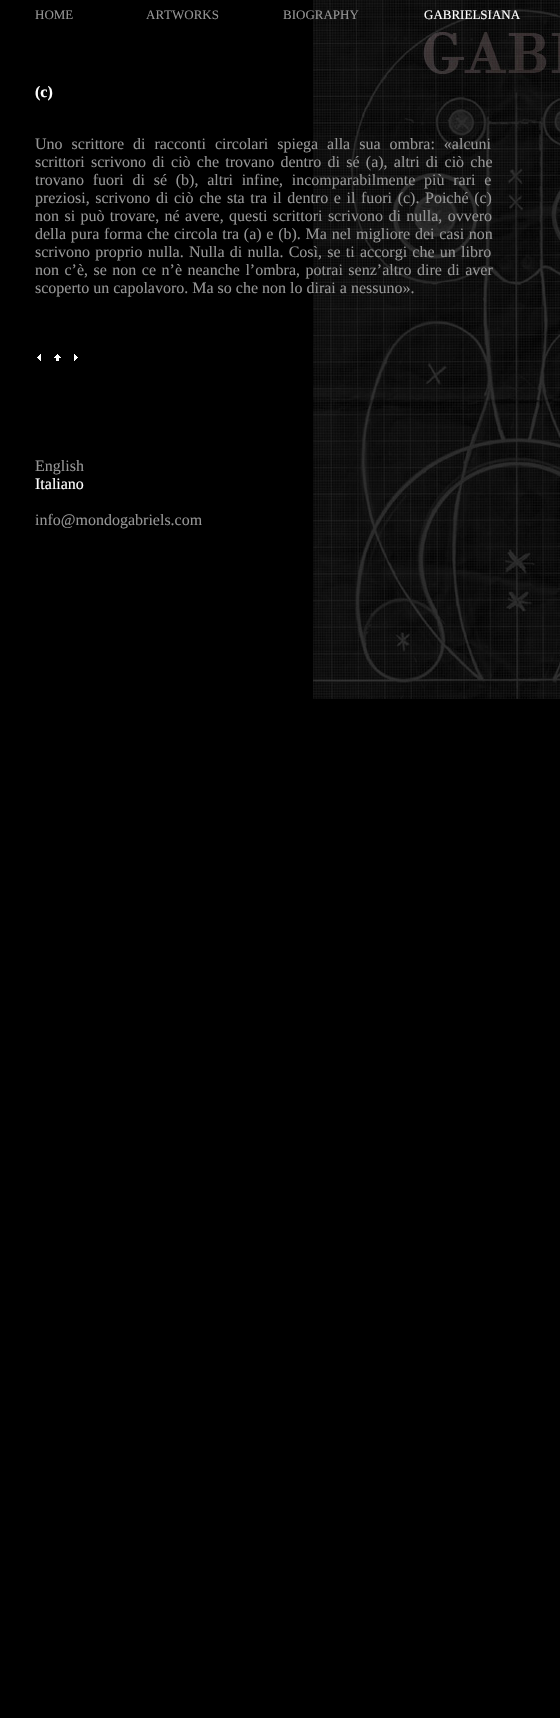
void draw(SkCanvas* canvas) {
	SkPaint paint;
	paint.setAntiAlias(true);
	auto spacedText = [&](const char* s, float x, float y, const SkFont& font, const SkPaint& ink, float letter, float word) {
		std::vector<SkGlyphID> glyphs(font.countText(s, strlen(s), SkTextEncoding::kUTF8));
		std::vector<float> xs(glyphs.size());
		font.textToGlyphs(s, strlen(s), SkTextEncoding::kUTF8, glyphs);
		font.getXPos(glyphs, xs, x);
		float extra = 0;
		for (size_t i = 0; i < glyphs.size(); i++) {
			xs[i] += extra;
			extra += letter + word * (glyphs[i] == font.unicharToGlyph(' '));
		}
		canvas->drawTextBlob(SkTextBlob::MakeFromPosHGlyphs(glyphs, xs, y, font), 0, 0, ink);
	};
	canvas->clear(0xff000000);
	canvas->drawImageRect(SkImages::DeferredFromEncodedData(SkData::MakeFromFileName("img1.png")), SkRect::MakeXYWH(313, 0, 247, 699), SkSamplingOptions());
	SkFont f1(fontMgr->matchFamilyStyle("Liberation Serif", SkFontStyle::Normal()), 13);
	f1.setSubpixel(true);
	paint.setColor(0xff959595);
	canvas->drawString("HOME", 35, 19, f1, paint);
	canvas->drawString("ARTWORKS", 146, 19, f1, paint);
	canvas->drawString("BIOGRAPHY", 283, 19, f1, paint);
	paint.setColor(0xffffffff);
	canvas->drawString("GABRIELSIANA", 424, 19, f1, paint);
	SkFont f2(fontMgr->matchFamilyStyle("Liberation Serif", SkFontStyle::Bold()), 16);
	f2.setSubpixel(true);
	canvas->drawString("(c)", 35, 97, f2, paint);
	SkFont f3(fontMgr->matchFamilyStyle("Liberation Serif", SkFontStyle::Normal()), 16);
	f3.setSubpixel(true);
	paint.setColor(0xff959595);
	spacedText("Uno scrittore di racconti circolari spiega alla sua ombra: «alcuni", 35, 149, f3, paint, 0, 5);
	spacedText("scrittori scrivono di ciò che trovano dentro di sé (a), altri di ciò che", 35, 167, f3, paint, 0, 2.25);
	spacedText("trovano fuori di sé (b), altri infine, incomparabilmente più rari e", 35, 185, f3, paint, 0, 4.75);
	spacedText("preziosi, scrivono di ciò che sta tra il dentro e il fuori (c). Poiché (c)", 35, 203, f3, paint, 0, 1.6);
	spacedText("non si può trovare, né avere, questi scrittori scrivono di nulla, ovvero", 35, 221, f3, paint, 0, 1.4);
	spacedText("della pura forma che circola tra (a) e (b). Ma nel migliore dei casi non", 35, 239, f3, paint, 0, 0.75);
	spacedText("scrivono proprio nulla. Nulla di nulla. Così, se ti accorgi che un libro", 35, 257, f3, paint, 0, 1.25);
	spacedText("non c’è, se non ce n’è neanche l’ombra, potrai senz’altro dire di aver", 35, 275, f3, paint, 0, 1.5);
	canvas->drawString("scoperto un capolavoro. Ma so che non lo dirai a nessuno».", 35, 293, f3, paint);
	canvas->drawImageRect(SkImages::DeferredFromEncodedData(SkData::MakeFromFileName("img2.png")), SkRect::MakeXYWH(37, 354, 4, 7), SkSamplingOptions());
	canvas->drawImageRect(SkImages::DeferredFromEncodedData(SkData::MakeFromFileName("img3.png")), SkRect::MakeXYWH(54, 354, 7, 7), SkSamplingOptions());
	canvas->drawImageRect(SkImages::DeferredFromEncodedData(SkData::MakeFromFileName("img4.png")), SkRect::MakeXYWH(74, 354, 4, 7), SkSamplingOptions());
	canvas->drawString("English", 35, 471, f3, paint);
	paint.setColor(0xffffffff);
	canvas->drawString("Italiano", 35, 489, f3, paint);
	paint.setColor(0xff959595);
	canvas->drawString("info@mondogabriels.com", 35, 525, f3, paint);
}
